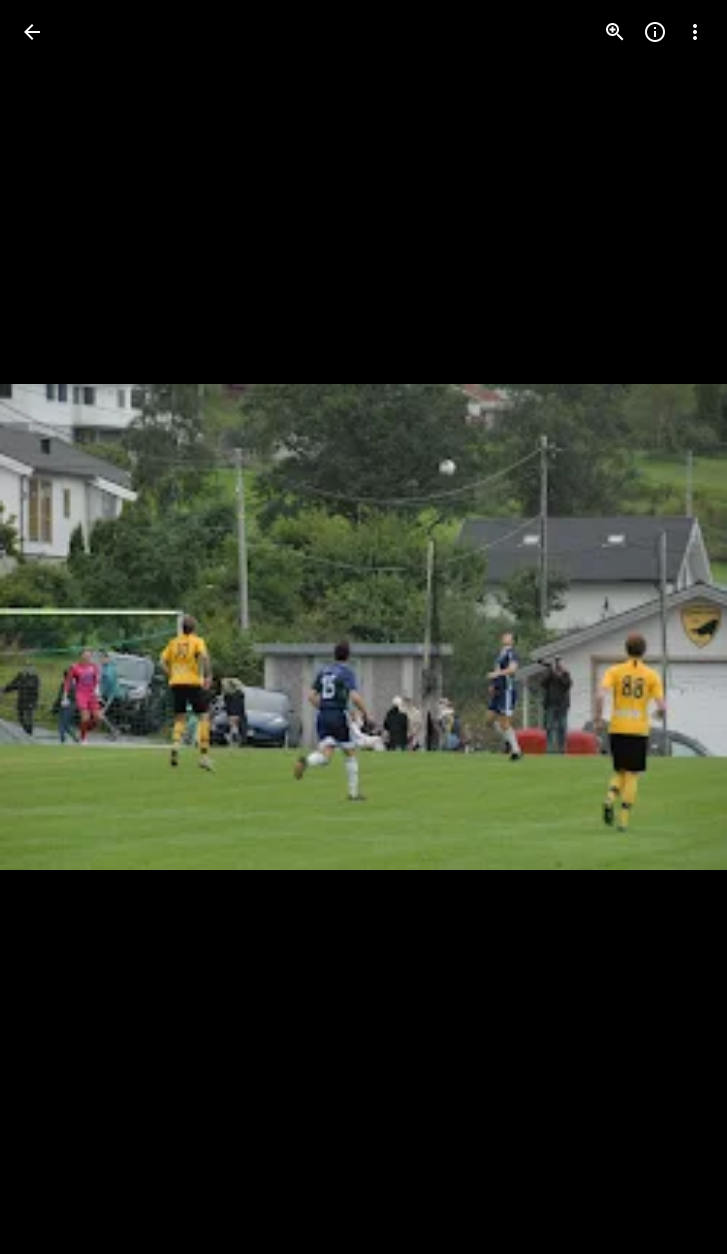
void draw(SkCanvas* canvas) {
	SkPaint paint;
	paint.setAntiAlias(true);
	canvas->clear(0xff000000);
	canvas->drawImageRect(SkImages::DeferredFromEncodedData(SkData::MakeFromFileName("img1.png")), SkRect::MakeXYWH(24, 24, 16, 16), SkSamplingOptions());
	canvas->drawImageRect(SkImages::DeferredFromEncodedData(SkData::MakeFromFileName("img2.png")), SkRect::MakeXYWH(606, 23, 18, 18), SkSamplingOptions());
	canvas->drawImageRect(SkImages::DeferredFromEncodedData(SkData::MakeFromFileName("img3.png")), SkRect::MakeXYWH(645, 22, 20, 20), SkSamplingOptions());
	canvas->drawImageRect(SkImages::DeferredFromEncodedData(SkData::MakeFromFileName("img4.png")), SkRect::MakeXYWH(693, 24, 4, 16), SkSamplingOptions());
	canvas->drawImageRect(SkImages::DeferredFromEncodedData(SkData::MakeFromFileName("img5.png")), SkRect::MakeXYWH(0, 384, 727, 486), SkSamplingOptions());
}
